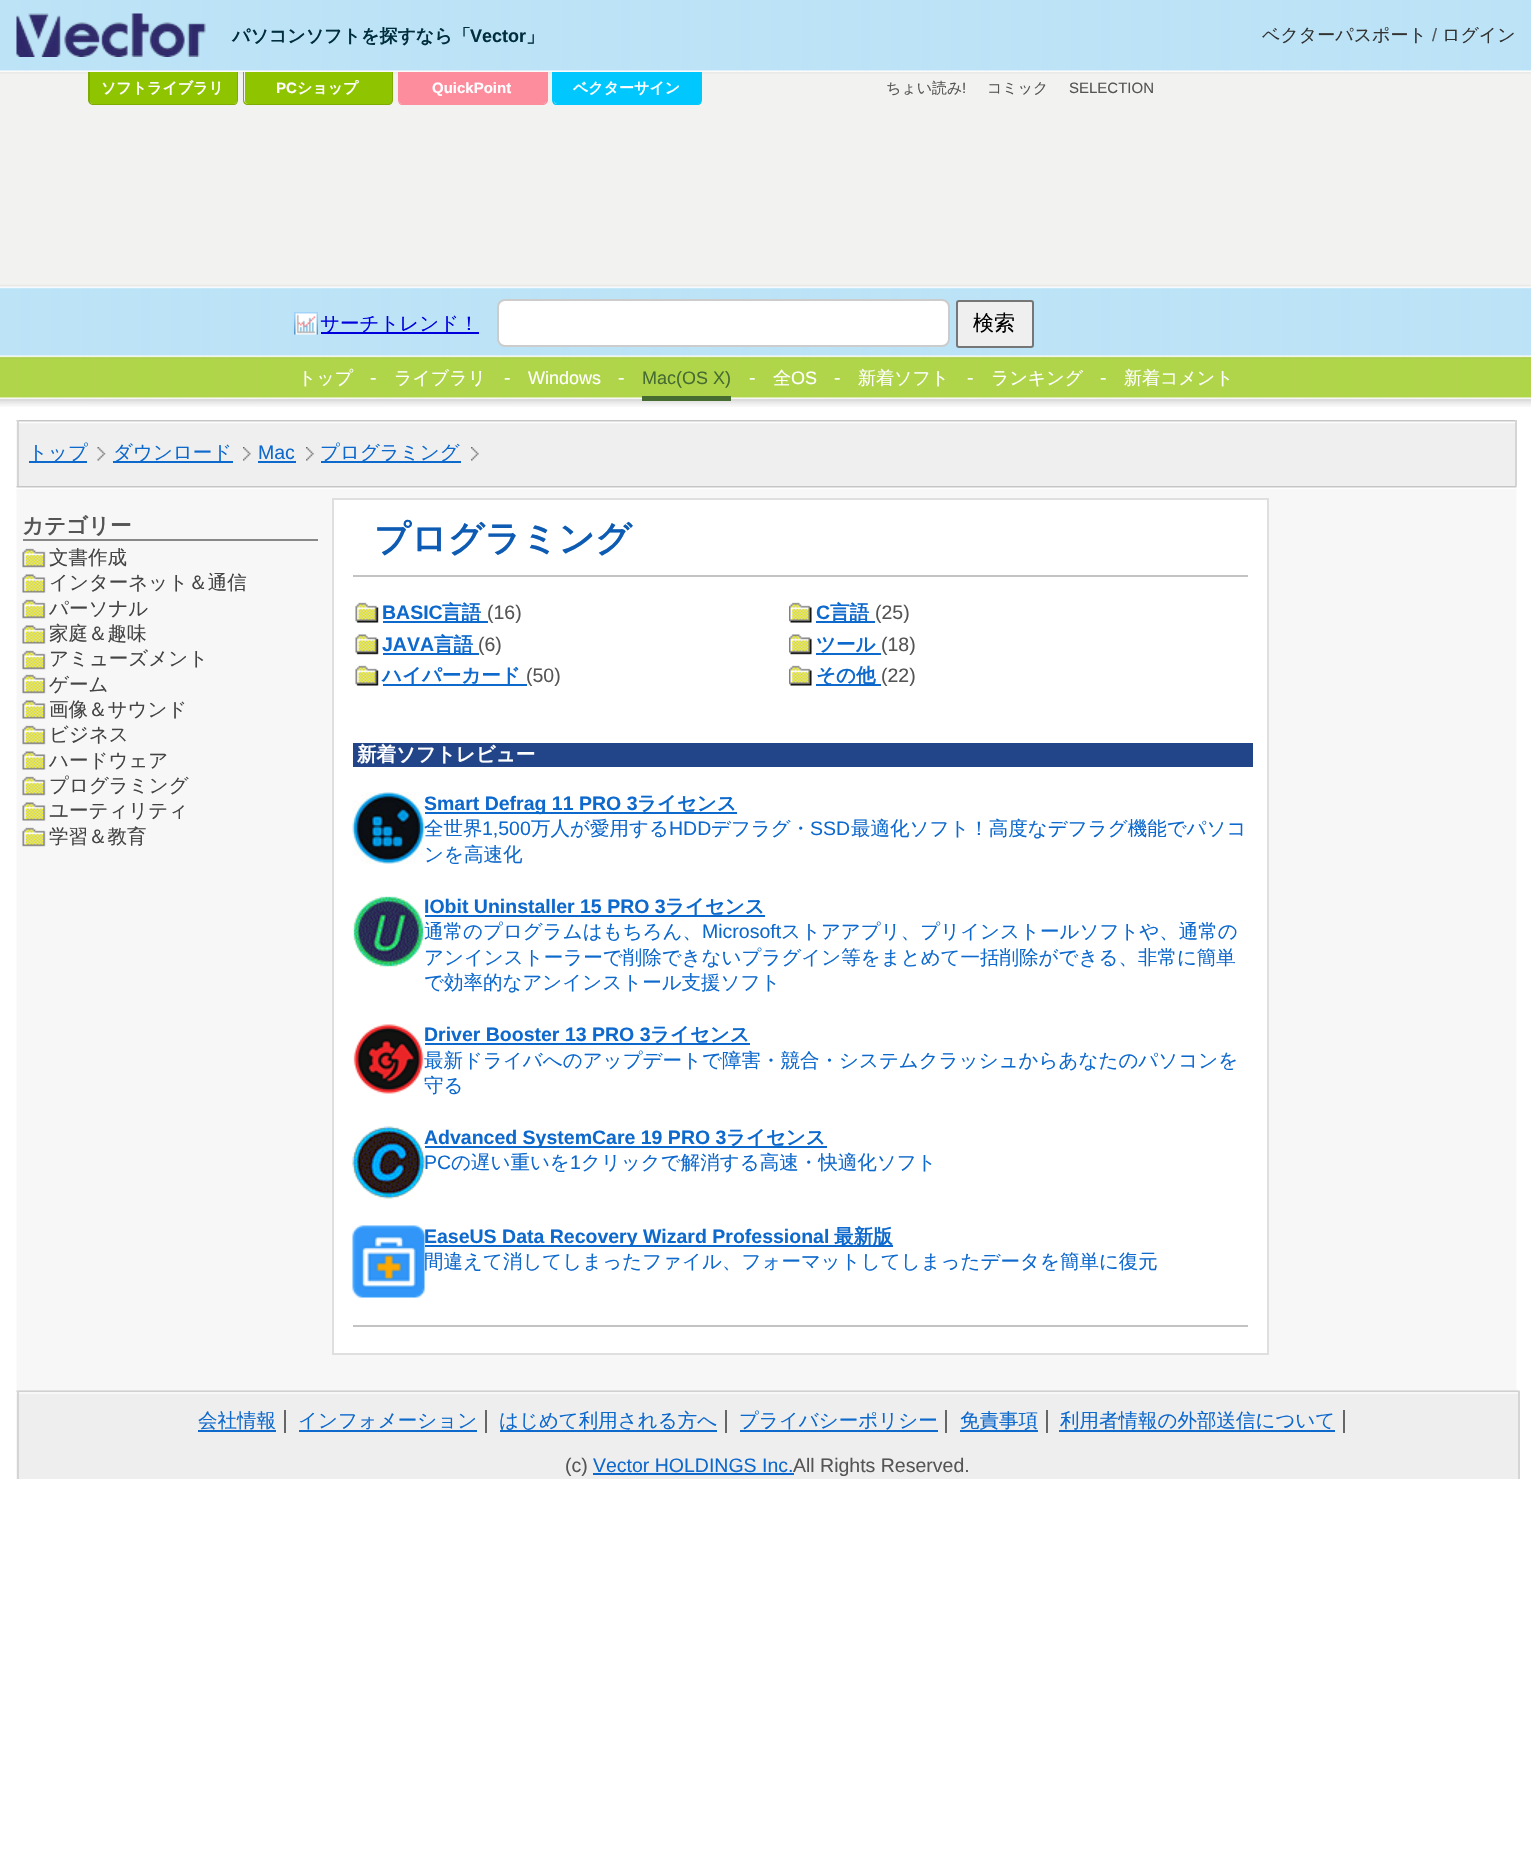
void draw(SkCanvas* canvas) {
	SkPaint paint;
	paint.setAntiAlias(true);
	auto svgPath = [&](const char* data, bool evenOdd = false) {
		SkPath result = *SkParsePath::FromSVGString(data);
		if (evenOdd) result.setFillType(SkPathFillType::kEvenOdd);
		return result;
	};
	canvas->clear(0xffffffff);
	canvas->drawImageRect(SkImages::DeferredFromEncodedData(SkData::MakeFromFileName("img1.png")), SkRect::MakeXYWH(0, 0, 1531, 407), SkSamplingOptions());
	canvas->drawImageRect(SkImages::DeferredFromEncodedData(SkData::MakeFromFileName("img2.png")), SkRect::MakeXYWH(16, 13, 190, 44), SkSamplingOptions());
	SkFont f1(fontMgr->matchFamilyStyle("WenQuanYi Zen Hei", SkFontStyle(500, SkFontStyle::kNormal_Width, SkFontStyle::kUpright_Slant)), 18);
	f1.setSubpixel(true);
	paint.setColor(0xff333333);
	canvas->drawString("ベクターパスポート", 1262, 41, f1, paint);
	SkFont f2(fontMgr->matchFamilyStyle("Liberation Sans", SkFontStyle::Normal()), 18);
	f2.setSubpixel(true);
	paint.setColor(0xff555555);
	canvas->drawString("/", 1432, 41, f2, paint);
	paint.setColor(0xff333333);
	canvas->drawString("ログイン", 1442, 41, f1, paint);
	SkFont f3(fontMgr->matchFamilyStyle("WenQuanYi Zen Hei", SkFontStyle::Bold()), 18);
	f3.setSubpixel(true);
	paint.setColor(0xff002e3d);
	canvas->drawString("パソコンソフトを探すなら「", 232, 42, f3, paint);
	SkFont f4(fontMgr->matchFamilyStyle("Liberation Sans", SkFontStyle::Bold()), 18);
	f4.setSubpixel(true);
	canvas->drawString("Vector", 470, 42, f4, paint);
	canvas->drawString("」", 526, 42, f3, paint);
	paint.setColor(0xff8fc400);
	canvas->drawPath(svgPath("M90 72H237V101C237 102.5 235.5 104 234 104H93C91.5 104 90 102.5 90 101Z"), paint);
	paint.setColor(0xff7eac00);
	canvas->drawPath(svgPath("M88 72H238V100C238 103 236 105 234 105H93C91 105 88 103 88 100ZM90 72H237V100C237 102 236 104 234 104H93C91 104 90 102 90 100Z", true), paint);
	SkFont f5(fontMgr->matchFamilyStyle("WenQuanYi Zen Hei", SkFontStyle::Bold()), 15);
	f5.setSubpixel(true);
	paint.setColor(0xffffffff);
	canvas->drawString("ソフトライブラリ", 101, 93, f5, paint);
	paint.setColor(0xff8fc400);
	canvas->drawPath(svgPath("M245 72H392V101C392 102.5 390.5 104 389 104H248C246.5 104 245 102.5 245 101Z"), paint);
	paint.setColor(0xff7eac00);
	canvas->drawPath(svgPath("M243 72H393V100C393 103 391 105 388 105H248C245 105 243 103 243 100ZM244 72H392V100C392 102 390 104 388 104H248C246 104 244 102 244 100Z", true), paint);
	SkFont f6(fontMgr->matchFamilyStyle("Liberation Sans", SkFontStyle::Bold()), 15);
	f6.setSubpixel(true);
	paint.setColor(0xffffffff);
	canvas->drawString("PC", 276, 93, f6, paint);
	canvas->drawString("ショップ", 297, 93, f5, paint);
	paint.setColor(0xfffd8c9d);
	canvas->drawPath(svgPath("M399 72H546V101C546 102.5 544.5 104 543 104H402C400.5 104 399 102.5 399 101Z"), paint);
	canvas->drawPath(svgPath("M398 72H548V100C548 103 545 105 543 105H402C400 105 398 103 398 100ZM399 72H546V100C546 102 545 104 543 104H402C400 104 399 102 399 100Z", true), paint);
	paint.setColor(0xffffffff);
	canvas->drawString("QuickPoint", 432, 93, f6, paint);
	paint.setColor(0xff00c8ff);
	canvas->drawPath(svgPath("M554 72H701V101C701 102.5 699.5 104 698 104H557C555.5 104 554 102.5 554 101Z"), paint);
	canvas->drawPath(svgPath("M552 72H702V100C702 103 700 105 698 105H556C554 105 552 103 552 100ZM554 72H700V100C700 102 699 104 698 104H556C555 104 554 102 554 100Z", true), paint);
	paint.setColor(0xffffffff);
	canvas->drawString("ベクターサイン", 573, 93, f5, paint);
	canvas->drawImageRect(SkImages::DeferredFromEncodedData(SkData::MakeFromFileName("img3.png")), SkRect::MakeXYWH(294, 312, 24, 23), SkSamplingOptions());
	paint.setColor(0xff0000dd);
	canvas->drawRect(SkRect::MakeXYWH(321, 332, 158, 2), paint);
	SkFont f7(fontMgr->matchFamilyStyle("WenQuanYi Zen Hei", SkFontStyle(500, SkFontStyle::kNormal_Width, SkFontStyle::kUpright_Slant)), 19.5);
	f7.setSubpixel(true);
	canvas->drawString("サーチトレンド！", 320, 330, f7, paint);
	paint.setColor(0xffffffff);
	canvas->drawRoundRect(SkRect::MakeXYWH(498, 300, 451, 46), 7, 7, paint);
	paint.setStroke(true);
	paint.setStrokeWidth(2);
	paint.setColor(0xffcccccc);
	canvas->drawRoundRect(SkRect::MakeXYWH(498, 300, 451, 46), 7, 7, paint);
	paint.setStroke(false);
	paint.setColor(0xffefefef);
	canvas->drawRoundRect(SkRect::MakeXYWH(957, 301, 76, 46), 2, 2, paint);
	paint.setStroke(true);
	paint.setColor(0xff767676);
	canvas->drawRoundRect(SkRect::MakeXYWH(957, 301, 76, 46), 2, 2, paint);
	SkFont f8(fontMgr->matchFamilyStyle("WenQuanYi Zen Hei", SkFontStyle(500, SkFontStyle::kNormal_Width, SkFontStyle::kUpright_Slant)), 21);
	f8.setSubpixel(true);
	paint.setStroke(false);
	paint.setColor(0xff000000);
	canvas->drawString("検索", 973, 330, f8, paint);
	SkFont f9(fontMgr->matchFamilyStyle("WenQuanYi Zen Hei", SkFontStyle(500, SkFontStyle::kNormal_Width, SkFontStyle::kUpright_Slant)), 15);
	f9.setSubpixel(true);
	paint.setColor(0xff555555);
	canvas->drawString("ちょい読み", 886, 93, f9, paint);
	SkFont f10(fontMgr->matchFamilyStyle("Liberation Sans", SkFontStyle::Normal()), 15);
	f10.setSubpixel(true);
	canvas->drawString("!", 962, 93, f10, paint);
	canvas->drawString("コミック", 987, 93, f9, paint);
	canvas->drawString("SELECTION", 1069, 93, f10, paint);
	paint.setColor(0xffffffff);
	canvas->drawString("トップ", 298, 384, f1, paint);
	SkFont f11(fontMgr->matchFamilyStyle("Liberation Sans", SkFontStyle::Normal()), 19.5);
	f11.setSubpixel(true);
	canvas->drawString("-", 370, 384, f11, paint);
	canvas->drawString("ライブラリ", 394, 384, f1, paint);
	canvas->drawString("-", 504, 384, f11, paint);
	canvas->drawString("Windows", 528, 384, f2, paint);
	canvas->drawString("-", 618, 384, f11, paint);
	paint.setColor(0xff476c31);
	canvas->drawRect(SkRect::MakeXYWH(642, 396, 89, 5), paint);
	canvas->drawString("Mac(OS X)", 642, 384, f2, paint);
	paint.setColor(0xffffffff);
	canvas->drawString("-", 749, 384, f11, paint);
	canvas->drawString("全", 773, 384, f1, paint);
	canvas->drawString("OS", 791, 384, f2, paint);
	canvas->drawString("-", 834, 384, f11, paint);
	canvas->drawString("新着ソフト", 858, 384, f1, paint);
	canvas->drawString("-", 967, 384, f11, paint);
	canvas->drawString("ランキング", 991, 384, f1, paint);
	canvas->drawString("-", 1100, 384, f11, paint);
	canvas->drawString("新着コメント", 1124, 384, f1, paint);
	canvas->drawImageRect(SkImages::DeferredFromEncodedData(SkData::MakeFromFileName("img4.png")), SkRect::MakeXYWH(16, 420, 1499, 66), SkSamplingOptions());
	paint.setColor(0xffd5d5d5);
	canvas->drawRect(SkRect::MakeXYWH(1515, 420, 2, 66), paint);
	canvas->drawRect(SkRect::MakeXYWH(17, 420, 2, 66), paint);
	canvas->drawImageRect(SkImages::DeferredFromEncodedData(SkData::MakeFromFileName("img5.png")), SkRect::MakeXYWH(97, 447, 9, 14), SkSamplingOptions());
	paint.setColor(0xff0e69cd);
	canvas->drawRect(SkRect::MakeXYWH(29, 461, 58, 2), paint);
	canvas->drawString("トップ", 28, 459, f7, paint);
	canvas->drawImageRect(SkImages::DeferredFromEncodedData(SkData::MakeFromFileName("img6.png")), SkRect::MakeXYWH(243, 447, 8, 14), SkSamplingOptions());
	canvas->drawRect(SkRect::MakeXYWH(113, 461, 120, 2), paint);
	canvas->drawString("ダウンロード", 113, 459, f7, paint);
	canvas->drawImageRect(SkImages::DeferredFromEncodedData(SkData::MakeFromFileName("img7.png")), SkRect::MakeXYWH(306, 447, 8, 14), SkSamplingOptions());
	canvas->drawString("Mac", 258, 459, f11, paint);
	canvas->drawRect(SkRect::MakeXYWH(258, 461, 38, 2), paint);
	canvas->drawImageRect(SkImages::DeferredFromEncodedData(SkData::MakeFromFileName("img7.png")), SkRect::MakeXYWH(471, 447, 8, 14), SkSamplingOptions());
	canvas->drawRect(SkRect::MakeXYWH(321, 461, 140, 2), paint);
	canvas->drawString("プログラミング", 320, 459, f7, paint);
	canvas->drawImageRect(SkImages::DeferredFromEncodedData(SkData::MakeFromFileName("img8.png")), SkRect::MakeXYWH(16, 486, 1501, 905), SkSamplingOptions());
	paint.setColor(0xff888888);
	canvas->drawRect(SkRect::MakeXYWH(23, 539, 295, 2), paint);
	SkFont f12(fontMgr->matchFamilyStyle("WenQuanYi Zen Hei", SkFontStyle::Bold()), 21.5);
	f12.setSubpixel(true);
	paint.setColor(0xff555555);
	canvas->drawString("カテゴリー", 22, 533, f12, paint);
	canvas->drawImageRect(SkImages::DeferredFromEncodedData(SkData::MakeFromFileName("img9.png")), SkRect::MakeXYWH(22, 548, 24, 20), SkSamplingOptions());
	paint.setColor(0xff444444);
	canvas->drawString("文書作成", 49, 564, f7, paint);
	canvas->drawImageRect(SkImages::DeferredFromEncodedData(SkData::MakeFromFileName("img10.png")), SkRect::MakeXYWH(22, 574, 24, 19), SkSamplingOptions());
	canvas->drawString("インターネット＆通信", 49, 589, f7, paint);
	canvas->drawImageRect(SkImages::DeferredFromEncodedData(SkData::MakeFromFileName("img9.png")), SkRect::MakeXYWH(22, 599, 24, 20), SkSamplingOptions());
	canvas->drawString("パーソナル", 49, 615, f7, paint);
	canvas->drawImageRect(SkImages::DeferredFromEncodedData(SkData::MakeFromFileName("img10.png")), SkRect::MakeXYWH(22, 625, 24, 19), SkSamplingOptions());
	canvas->drawString("家庭＆趣味", 49, 640, f7, paint);
	canvas->drawImageRect(SkImages::DeferredFromEncodedData(SkData::MakeFromFileName("img9.png")), SkRect::MakeXYWH(22, 650, 24, 20), SkSamplingOptions());
	canvas->drawString("アミューズメント", 49, 665, f7, paint);
	canvas->drawImageRect(SkImages::DeferredFromEncodedData(SkData::MakeFromFileName("img9.png")), SkRect::MakeXYWH(22, 674, 24, 20), SkSamplingOptions());
	canvas->drawString("ゲーム", 49, 691, f7, paint);
	canvas->drawImageRect(SkImages::DeferredFromEncodedData(SkData::MakeFromFileName("img10.png")), SkRect::MakeXYWH(22, 700, 24, 19), SkSamplingOptions());
	canvas->drawString("画像＆サウンド", 49, 716, f7, paint);
	canvas->drawImageRect(SkImages::DeferredFromEncodedData(SkData::MakeFromFileName("img9.png")), SkRect::MakeXYWH(22, 725, 24, 20), SkSamplingOptions());
	canvas->drawString("ビジネス", 49, 741, f7, paint);
	canvas->drawImageRect(SkImages::DeferredFromEncodedData(SkData::MakeFromFileName("img10.png")), SkRect::MakeXYWH(22, 751, 24, 19), SkSamplingOptions());
	canvas->drawString("ハードウェア", 49, 767, f7, paint);
	canvas->drawImageRect(SkImages::DeferredFromEncodedData(SkData::MakeFromFileName("img9.png")), SkRect::MakeXYWH(22, 776, 24, 20), SkSamplingOptions());
	canvas->drawString("プログラミング", 49, 792, f7, paint);
	canvas->drawImageRect(SkImages::DeferredFromEncodedData(SkData::MakeFromFileName("img10.png")), SkRect::MakeXYWH(22, 802, 24, 19), SkSamplingOptions());
	canvas->drawString("ユーティリティ", 49, 817, f7, paint);
	canvas->drawImageRect(SkImages::DeferredFromEncodedData(SkData::MakeFromFileName("img9.png")), SkRect::MakeXYWH(22, 827, 24, 20), SkSamplingOptions());
	canvas->drawString("学習＆教育", 49, 843, f7, paint);
	paint.setColor(0xffffffff);
	canvas->drawRect(SkRect::MakeXYWH(333, 499, 935, 855), paint);
	paint.setStroke(true);
	paint.setColor(0xffdfdfdf);
	canvas->drawRect(SkRect::MakeXYWH(333, 499, 935, 855), paint);
	paint.setStroke(false);
	paint.setColor(0xffc3c3c3);
	canvas->drawRect(SkRect::MakeXYWH(353, 575, 895, 2), paint);
	SkFont f13(fontMgr->matchFamilyStyle("WenQuanYi Zen Hei", SkFontStyle::Bold()), 36);
	f13.setSubpixel(true);
	paint.setColor(0xff0d5bb3);
	canvas->drawString("プログラミング", 374, 551, f13, paint);
	canvas->drawImageRect(SkImages::DeferredFromEncodedData(SkData::MakeFromFileName("img11.png")), SkRect::MakeXYWH(355, 602, 24, 21), SkSamplingOptions());
	SkFont f14(fontMgr->matchFamilyStyle("Liberation Sans", SkFontStyle::Bold()), 19.5);
	f14.setSubpixel(true);
	paint.setColor(0xff0e69cd);
	canvas->drawString("BASIC", 382, 619, f14, paint);
	canvas->drawRect(SkRect::MakeXYWH(383, 621, 105, 2), paint);
	SkFont f15(fontMgr->matchFamilyStyle("WenQuanYi Zen Hei", SkFontStyle::Bold()), 19.5);
	f15.setSubpixel(true);
	canvas->drawString("言語", 442, 619, f15, paint);
	paint.setColor(0xff555555);
	canvas->drawString("(16)", 487, 619, f11, paint);
	canvas->drawImageRect(SkImages::DeferredFromEncodedData(SkData::MakeFromFileName("img12.png")), SkRect::MakeXYWH(789, 602, 23, 21), SkSamplingOptions());
	paint.setColor(0xff0e69cd);
	canvas->drawString("C", 816, 619, f14, paint);
	canvas->drawRect(SkRect::MakeXYWH(816, 621, 59, 2), paint);
	canvas->drawString("言語", 830, 619, f15, paint);
	paint.setColor(0xff555555);
	canvas->drawString("(25)", 875, 619, f11, paint);
	canvas->drawImageRect(SkImages::DeferredFromEncodedData(SkData::MakeFromFileName("img13.png")), SkRect::MakeXYWH(355, 634, 24, 21), SkSamplingOptions());
	paint.setColor(0xff0e69cd);
	canvas->drawString("JAVA", 382, 651, f14, paint);
	canvas->drawRect(SkRect::MakeXYWH(383, 653, 96, 2), paint);
	canvas->drawString("言語", 434, 651, f15, paint);
	paint.setColor(0xff555555);
	canvas->drawString("(6)", 478, 651, f11, paint);
	canvas->drawImageRect(SkImages::DeferredFromEncodedData(SkData::MakeFromFileName("img14.png")), SkRect::MakeXYWH(789, 634, 23, 21), SkSamplingOptions());
	paint.setColor(0xff0e69cd);
	canvas->drawString("ツール", 816, 651, f15, paint);
	canvas->drawRect(SkRect::MakeXYWH(816, 653, 65, 2), paint);
	paint.setColor(0xff555555);
	canvas->drawString("(18)", 881, 651, f11, paint);
	canvas->drawImageRect(SkImages::DeferredFromEncodedData(SkData::MakeFromFileName("img11.png")), SkRect::MakeXYWH(355, 665, 24, 21), SkSamplingOptions());
	paint.setColor(0xff0e69cd);
	canvas->drawRect(SkRect::MakeXYWH(383, 684, 144, 2), paint);
	canvas->drawString("ハイパーカード", 382, 682, f15, paint);
	paint.setColor(0xff555555);
	canvas->drawString("(50)", 526, 682, f11, paint);
	canvas->drawImageRect(SkImages::DeferredFromEncodedData(SkData::MakeFromFileName("img12.png")), SkRect::MakeXYWH(789, 665, 23, 21), SkSamplingOptions());
	paint.setColor(0xff0e69cd);
	canvas->drawRect(SkRect::MakeXYWH(816, 684, 65, 2), paint);
	canvas->drawString("その他", 816, 682, f15, paint);
	paint.setColor(0xff555555);
	canvas->drawString("(22)", 881, 682, f11, paint);
	paint.setColor(0xff224488);
	canvas->drawRect(SkRect::MakeXYWH(353, 743, 900, 24), paint);
	paint.setColor(0xffffffff);
	canvas->drawString("新着ソフトレビュー", 357, 761, f15, paint);
	canvas->drawImageRect(SkImages::DeferredFromEncodedData(SkData::MakeFromFileName("img15.png")), SkRect::MakeXYWH(352, 792, 73, 72), SkSamplingOptions());
	paint.setColor(0xff0e69cd);
	canvas->drawRect(SkRect::MakeXYWH(425, 812, 312, 2), paint);
	canvas->drawString("Smart Defrag 11 PRO 3", 424, 810, f14, paint);
	canvas->drawString("ライセンス", 637, 810, f15, paint);
	canvas->drawString("全世界", 424, 835, f7, paint);
	canvas->drawString("1,500", 482, 835, f11, paint);
	canvas->drawString("万人が愛用する", 531, 835, f7, paint);
	canvas->drawString("HDD", 669, 835, f11, paint);
	canvas->drawString("デフラグ・", 711, 835, f7, paint);
	canvas->drawString("SSD", 810, 835, f11, paint);
	canvas->drawString("最適化ソフト！高度なデフラグ機能でパソコ", 851, 835, f7, paint);
	canvas->drawString("ンを高速化", 424, 861, f7, paint);
	canvas->drawImageRect(SkImages::DeferredFromEncodedData(SkData::MakeFromFileName("img16.png")), SkRect::MakeXYWH(352, 896, 73, 72), SkSamplingOptions());
	canvas->drawString("IObit Uninstaller 15 PRO 3", 424, 913, f14, paint);
	canvas->drawRect(SkRect::MakeXYWH(425, 915, 340, 2), paint);
	canvas->drawString("ライセンス", 665, 913, f15, paint);
	canvas->drawString("通常のプログラムはもちろん、", 424, 938, f7, paint);
	canvas->drawString("Microsoft", 702, 938, f11, paint);
	canvas->drawString("ストアアプリ、プリインストールソフトや、通常の", 781, 938, f7, paint);
	canvas->drawString("アンインストーラーで削除できないプラグイン等をまとめて一括削除ができる、非常に簡単", 424, 964, f7, paint);
	canvas->drawString("で効率的なアンインストール支援ソフト", 424, 989, f7, paint);
	canvas->drawImageRect(SkImages::DeferredFromEncodedData(SkData::MakeFromFileName("img17.png")), SkRect::MakeXYWH(353, 1024, 71, 70), SkSamplingOptions());
	canvas->drawString("Driver Booster 13 PRO 3", 424, 1041, f14, paint);
	canvas->drawRect(SkRect::MakeXYWH(425, 1043, 325, 2), paint);
	canvas->drawString("ライセンス", 650, 1041, f15, paint);
	canvas->drawString("最新ドライバへのアップデートで障害・競合・システムクラッシュからあなたのパソコンを", 424, 1067, f7, paint);
	canvas->drawString("守る", 424, 1092, f7, paint);
	canvas->drawImageRect(SkImages::DeferredFromEncodedData(SkData::MakeFromFileName("img18.png")), SkRect::MakeXYWH(352, 1126, 73, 73), SkSamplingOptions());
	canvas->drawRect(SkRect::MakeXYWH(425, 1146, 402, 2), paint);
	canvas->drawString("Advanced SystemCare 19 PRO 3", 424, 1144, f14, paint);
	canvas->drawString("ライセンス", 726, 1144, f15, paint);
	canvas->drawString("PC", 424, 1169, f11, paint);
	canvas->drawString("の遅い重いを", 451, 1169, f7, paint);
	canvas->drawString("1", 570, 1169, f11, paint);
	canvas->drawString("クリックで解消する高速・快適化ソフト", 581, 1169, f7, paint);
	canvas->drawImageRect(SkImages::DeferredFromEncodedData(SkData::MakeFromFileName("img19.png")), SkRect::MakeXYWH(352, 1225, 73, 73), SkSamplingOptions());
	canvas->drawRect(SkRect::MakeXYWH(425, 1245, 468, 2), paint);
	canvas->drawString("EaseUS Data Recovery Wizard Professional", 424, 1243, f14, paint);
	canvas->drawString("最新版", 834, 1243, f15, paint);
	canvas->drawString("間違えて消してしまったファイル、フォーマットしてしまったデータを簡単に復元", 424, 1268, f7, paint);
	paint.setColor(0xffc3c3c3);
	canvas->drawRect(SkRect::MakeXYWH(353, 1325, 895, 2), paint);
	canvas->drawImageRect(SkImages::DeferredFromEncodedData(SkData::MakeFromFileName("img20.png")), SkRect::MakeXYWH(16, 1390, 1504, 89), SkSamplingOptions());
	paint.setColor(0xffd5d5d5);
	canvas->drawRect(SkRect::MakeXYWH(1518, 1391, 2, 88), paint);
	canvas->drawRect(SkRect::MakeXYWH(17, 1391, 2, 88), paint);
	paint.setColor(0xff0e69cd);
	canvas->drawString("会社情報", 198, 1427, f7, paint);
	paint.setColor(0xff666666);
	canvas->drawRect(SkRect::MakeXYWH(284, 1410, 2, 23), paint);
	paint.setColor(0xff0e69cd);
	canvas->drawRect(SkRect::MakeXYWH(198, 1430, 78, 2), paint);
	canvas->drawString("インフォメーション", 298, 1427, f7, paint);
	paint.setColor(0xff666666);
	canvas->drawRect(SkRect::MakeXYWH(485, 1410, 2, 23), paint);
	paint.setColor(0xff0e69cd);
	canvas->drawRect(SkRect::MakeXYWH(299, 1430, 178, 2), paint);
	canvas->drawString("はじめて利用される方へ", 499, 1427, f7, paint);
	paint.setColor(0xff666666);
	canvas->drawRect(SkRect::MakeXYWH(725, 1410, 2, 23), paint);
	paint.setColor(0xff0e69cd);
	canvas->drawRect(SkRect::MakeXYWH(500, 1430, 217, 2), paint);
	canvas->drawString("プライバシーポリシー", 739, 1427, f7, paint);
	paint.setColor(0xff666666);
	canvas->drawRect(SkRect::MakeXYWH(945, 1410, 2, 23), paint);
	paint.setColor(0xff0e69cd);
	canvas->drawRect(SkRect::MakeXYWH(740, 1430, 198, 2), paint);
	canvas->drawRect(SkRect::MakeXYWH(960, 1430, 78, 2), paint);
	canvas->drawString("免責事項", 960, 1427, f7, paint);
	paint.setColor(0xff666666);
	canvas->drawRect(SkRect::MakeXYWH(1046, 1410, 2, 23), paint);
	paint.setColor(0xff0e69cd);
	canvas->drawString("利用者情報の外部送信について", 1060, 1427, f7, paint);
	paint.setColor(0xff666666);
	canvas->drawRect(SkRect::MakeXYWH(1343, 1410, 2, 23), paint);
	paint.setColor(0xff0e69cd);
	canvas->drawRect(SkRect::MakeXYWH(1059, 1430, 276, 2), paint);
	paint.setColor(0xff555555);
	canvas->drawString("(c)", 565, 1472, f11, paint);
	paint.setColor(0xff0e69cd);
	canvas->drawString("Vector HOLDINGS Inc.", 593, 1472, f11, paint);
	canvas->drawRect(SkRect::MakeXYWH(593, 1473, 201, 2), paint);
	paint.setColor(0xff555555);
	canvas->drawString("All Rights Reserved.", 793, 1472, f11, paint);
}
